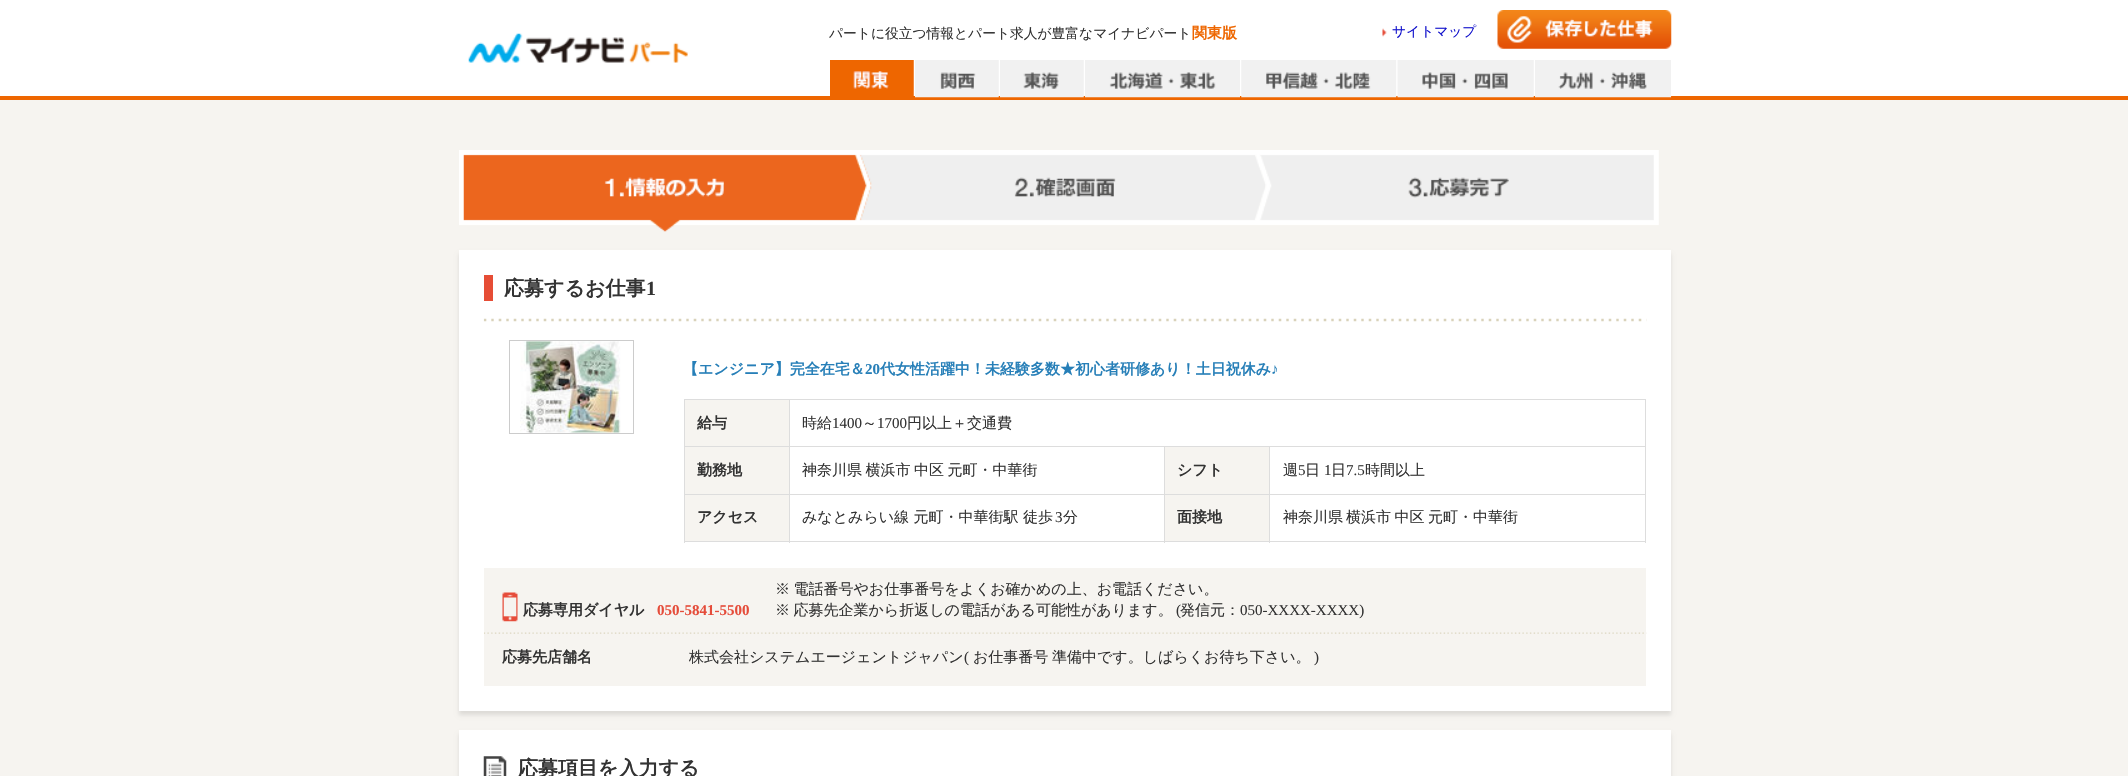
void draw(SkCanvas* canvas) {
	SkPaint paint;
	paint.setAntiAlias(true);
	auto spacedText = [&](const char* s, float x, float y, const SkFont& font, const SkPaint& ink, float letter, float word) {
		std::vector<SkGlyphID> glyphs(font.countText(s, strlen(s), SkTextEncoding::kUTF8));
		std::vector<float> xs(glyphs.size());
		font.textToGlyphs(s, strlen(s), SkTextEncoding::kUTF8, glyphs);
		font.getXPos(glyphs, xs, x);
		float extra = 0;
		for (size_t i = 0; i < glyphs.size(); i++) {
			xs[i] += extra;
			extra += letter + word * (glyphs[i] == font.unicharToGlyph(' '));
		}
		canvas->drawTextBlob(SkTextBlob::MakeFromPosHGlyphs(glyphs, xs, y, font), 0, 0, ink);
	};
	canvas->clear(0xfff6f4f0);
	paint.setColor(0xffffffff);
	canvas->drawRect(SkRect::MakeXYWH(0, 0, 2128, 96), paint);
	paint.setColor(0xffee6600);
	canvas->drawRect(SkRect::MakeXYWH(0, 96, 2128, 4), paint);
	canvas->drawImageRect(SkImages::DeferredFromEncodedData(SkData::MakeFromFileName("img1.png")), SkRect::MakeXYWH(468, 33, 220, 30), SkSamplingOptions());
	SkFont f1(fontMgr->matchFamilyStyle("WenQuanYi Zen Hei", SkFontStyle(500, SkFontStyle::kNormal_Width, SkFontStyle::kUpright_Slant)), 13.75);
	f1.setSubpixel(true);
	paint.setColor(0xff333333);
	canvas->drawString("パートに役立つ情報とパート求人が豊富なマイナビパート", 829, 38, f1, paint);
	SkFont f2(fontMgr->matchFamilyStyle("WenQuanYi Zen Hei", SkFontStyle::Bold()), 15);
	f2.setSubpixel(true);
	paint.setColor(0xffee6600);
	canvas->drawString("関東版", 1192, 38, f2, paint);
	canvas->drawImageRect(SkImages::DeferredFromEncodedData(SkData::MakeFromFileName("img2.png")), SkRect::MakeXYWH(1382, 28, 5, 9), SkSamplingOptions());
	paint.setColor(0xff1111cc);
	canvas->drawString("サイトマップ", 1392, 36, f1, paint);
	canvas->drawImageRect(SkImages::DeferredFromEncodedData(SkData::MakeFromFileName("img3.png")), SkRect::MakeXYWH(1497, 10, 175, 39), SkSamplingOptions());
	canvas->drawImageRect(SkImages::DeferredFromEncodedData(SkData::MakeFromFileName("img4.png")), SkRect::MakeXYWH(830, 60, 84, 36), SkSamplingOptions());
	canvas->drawImageRect(SkImages::DeferredFromEncodedData(SkData::MakeFromFileName("img5.png")), SkRect::MakeXYWH(915, 60, 84, 38), SkSamplingOptions());
	canvas->drawImageRect(SkImages::DeferredFromEncodedData(SkData::MakeFromFileName("img6.png")), SkRect::MakeXYWH(1000, 60, 84, 38), SkSamplingOptions());
	canvas->drawImageRect(SkImages::DeferredFromEncodedData(SkData::MakeFromFileName("img7.png")), SkRect::MakeXYWH(1085, 60, 155, 38), SkSamplingOptions());
	canvas->drawImageRect(SkImages::DeferredFromEncodedData(SkData::MakeFromFileName("img8.png")), SkRect::MakeXYWH(1241, 60, 156, 38), SkSamplingOptions());
	canvas->drawImageRect(SkImages::DeferredFromEncodedData(SkData::MakeFromFileName("img9.png")), SkRect::MakeXYWH(1397, 60, 137, 38), SkSamplingOptions());
	canvas->drawImageRect(SkImages::DeferredFromEncodedData(SkData::MakeFromFileName("img10.png")), SkRect::MakeXYWH(1535, 60, 137, 38), SkSamplingOptions());
	canvas->drawImageRect(SkImages::DeferredFromEncodedData(SkData::MakeFromFileName("img11.png")), SkRect::MakeXYWH(459, 150, 1200, 82), SkSamplingOptions());
	paint.setColor(0x1a000000);
	paint.setMaskFilter(SkMaskFilter::MakeBlur(kNormal_SkBlurStyle, 2));
	canvas->drawRect(SkRect::MakeXYWH(459, 254, 1212, 461), paint);
	paint.setMaskFilter(nullptr);
	paint.setColor(0xffffffff);
	canvas->drawRect(SkRect::MakeXYWH(459, 250, 1212, 461), paint);
	canvas->drawImageRect(SkImages::DeferredFromEncodedData(SkData::MakeFromFileName("img12.png")), SkRect::MakeXYWH(483, 318, 1164, 4), SkSamplingOptions());
	paint.setColor(0xffe64d35);
	canvas->drawRect(SkRect::MakeXYWH(484, 275, 9, 26), paint);
	SkFont f3(fontMgr->matchFamilyStyle("WenQuanYi Zen Hei", SkFontStyle::Bold()), 20);
	f3.setSubpixel(true);
	paint.setColor(0xff333333);
	canvas->drawString("応募するお仕事", 504, 295, f3, paint);
	SkFont f4(fontMgr->matchFamilyStyle("Liberation Serif", SkFontStyle::Bold()), 20);
	f4.setSubpixel(true);
	canvas->drawString("1", 646, 295, f4, paint);
	paint.setStroke(true);
	paint.setStrokeWidth(1);
	paint.setColor(0xffcccccc);
	canvas->drawRect(SkRect::MakeXYWH(509.5, 340.5, 124, 93), paint);
	canvas->drawImageRect(SkImages::DeferredFromEncodedData(SkData::MakeFromFileName("img13.png")), SkRect::MakeXYWH(520, 341, 101, 92), SkSamplingOptions());
	paint.setStroke(false);
	paint.setColor(0xff277fb8);
	canvas->drawString("【エンジニア】完全在宅＆", 683, 374, f2, paint);
	SkFont f5(fontMgr->matchFamilyStyle("Liberation Serif", SkFontStyle::Bold()), 15);
	f5.setSubpixel(true);
	canvas->drawString("20", 865, 374, f5, paint);
	canvas->drawString("代女性活躍中！未経験多数★初心者研修あり！土日祝休み", 880, 374, f2, paint);
	canvas->drawString("♪", 1271, 374, f5, paint);
	paint.setColor(0xfff6f4f0);
	canvas->drawRect(SkRect::MakeXYWH(685, 400, 104, 46), paint);
	paint.setColor(0xffdddddd);
	canvas->drawRect(SkRect::MakeXYWH(789, 399, 857, 1), paint);
	canvas->drawRect(SkRect::MakeXYWH(1269, 446, 377, 1), paint);
	canvas->drawRect(SkRect::MakeXYWH(1269, 494, 377, 1), paint);
	canvas->drawRect(SkRect::MakeXYWH(1645, 494, 1, 49), paint);
	canvas->drawRect(SkRect::MakeXYWH(1269, 541, 377, 1), paint);
	canvas->drawRect(SkRect::MakeXYWH(1269, 494, 1, 49), paint);
	canvas->drawRect(SkRect::MakeXYWH(1164, 494, 106, 1), paint);
	canvas->drawRect(SkRect::MakeXYWH(1269, 446, 1, 49), paint);
	canvas->drawRect(SkRect::MakeXYWH(1164, 446, 106, 1), paint);
	canvas->drawRect(SkRect::MakeXYWH(1164, 541, 106, 1), paint);
	canvas->drawRect(SkRect::MakeXYWH(1164, 494, 1, 49), paint);
	canvas->drawRect(SkRect::MakeXYWH(789, 494, 376, 1), paint);
	canvas->drawRect(SkRect::MakeXYWH(1164, 446, 1, 49), paint);
	canvas->drawRect(SkRect::MakeXYWH(789, 446, 376, 1), paint);
	canvas->drawRect(SkRect::MakeXYWH(789, 541, 376, 1), paint);
	canvas->drawRect(SkRect::MakeXYWH(789, 494, 1, 49), paint);
	canvas->drawRect(SkRect::MakeXYWH(684, 494, 106, 1), paint);
	canvas->drawRect(SkRect::MakeXYWH(789, 446, 1, 49), paint);
	canvas->drawRect(SkRect::MakeXYWH(684, 446, 106, 1), paint);
	canvas->drawRect(SkRect::MakeXYWH(789, 399, 1, 49), paint);
	canvas->drawRect(SkRect::MakeXYWH(684, 399, 106, 1), paint);
	canvas->drawRect(SkRect::MakeXYWH(684, 541, 106, 1), paint);
	canvas->drawRect(SkRect::MakeXYWH(684, 494, 1, 49), paint);
	canvas->drawRect(SkRect::MakeXYWH(684, 446, 1, 49), paint);
	canvas->drawRect(SkRect::MakeXYWH(684, 399, 1, 49), paint);
	paint.setColor(0xff333333);
	canvas->drawString("給与", 697, 428, f2, paint);
	paint.setColor(0xffdddddd);
	canvas->drawRect(SkRect::MakeXYWH(1645, 446, 1, 49), paint);
	canvas->drawRect(SkRect::MakeXYWH(1645, 399, 1, 49), paint);
	SkFont f6(fontMgr->matchFamilyStyle("WenQuanYi Zen Hei", SkFontStyle(500, SkFontStyle::kNormal_Width, SkFontStyle::kUpright_Slant)), 15);
	f6.setSubpixel(true);
	paint.setColor(0xff333333);
	canvas->drawString("時給", 802, 428, f6, paint);
	SkFont f7(fontMgr->matchFamilyStyle("Liberation Serif", SkFontStyle::Normal()), 15);
	f7.setSubpixel(true);
	canvas->drawString("1400", 832, 428, f7, paint);
	canvas->drawString("～", 862, 428, f6, paint);
	canvas->drawString("1700", 877, 428, f7, paint);
	canvas->drawString("円以上＋交通費", 907, 428, f6, paint);
	paint.setColor(0xfff6f4f0);
	canvas->drawRect(SkRect::MakeXYWH(685, 447, 104, 47), paint);
	paint.setColor(0xff333333);
	canvas->drawString("勤務地", 697, 475, f2, paint);
	spacedText("神奈川県 横浜市 中区 元町・中華街", 802, 475, f6, paint, 0, -1);
	paint.setColor(0xfff6f4f0);
	canvas->drawRect(SkRect::MakeXYWH(1165, 447, 104, 47), paint);
	paint.setColor(0xff333333);
	canvas->drawString("シフト", 1177, 475, f2, paint);
	canvas->drawString("週", 1283, 475, f6, paint);
	canvas->drawString("5", 1298, 475, f7, paint);
	canvas->drawString("日", 1305, 475, f6, paint);
	canvas->drawString("1", 1324, 475, f7, paint);
	canvas->drawString("日", 1331, 475, f6, paint);
	canvas->drawString("7.5", 1346, 475, f7, paint);
	canvas->drawString("時間以上", 1365, 475, f6, paint);
	paint.setColor(0xfff6f4f0);
	canvas->drawRect(SkRect::MakeXYWH(685, 495, 104, 46), paint);
	paint.setColor(0xff333333);
	canvas->drawString("アクセス", 697, 522, f2, paint);
	canvas->drawString("みなとみらい線 元町・中華街駅 徒歩", 802, 522, f6, paint);
	canvas->drawString("3", 1055, 522, f7, paint);
	canvas->drawString("分", 1063, 522, f6, paint);
	paint.setColor(0xfff6f4f0);
	canvas->drawRect(SkRect::MakeXYWH(1165, 495, 104, 46), paint);
	paint.setColor(0xff333333);
	canvas->drawString("面接地", 1177, 522, f2, paint);
	canvas->drawString("神奈川県", 1283, 522, f6, paint);
	spacedText("横浜市 中区 元町・中華街", 1346, 522, f6, paint, 0, -1);
	paint.setColor(0xfff6f4f0);
	canvas->drawRect(SkRect::MakeXYWH(484, 568, 1162, 118), paint);
	canvas->drawImageRect(SkImages::DeferredFromEncodedData(SkData::MakeFromFileName("img14.png")), SkRect::MakeXYWH(484, 632, 1163, 2), SkSamplingOptions());
	canvas->drawImageRect(SkImages::DeferredFromEncodedData(SkData::MakeFromFileName("img15.png")), SkRect::MakeXYWH(502, 592, 16, 30), SkSamplingOptions());
	paint.setColor(0xff333333);
	canvas->drawString("応募専用ダイヤル", 523, 615, f2, paint);
	paint.setColor(0xffe54c3a);
	canvas->drawString("050-5841-5500", 657, 615, f5, paint);
	paint.setColor(0xff333333);
	spacedText("※ 電話番号やお仕事番号をよくお確かめの上、お電話ください。", 775, 594, f6, paint, 0, -1);
	spacedText("※ 応募先企業から折返しの電話がある可能性があります。", 775, 615, f6, paint, 0, -1);
	canvas->drawString("(", 1176, 615, f7, paint);
	canvas->drawString("発信元：", 1180, 615, f6, paint);
	canvas->drawString("050-XXXX-XXXX)", 1240, 615, f7, paint);
	canvas->drawString("応募先店舗名", 502, 662, f2, paint);
	canvas->drawString("株式会社システムエージェントジャパン", 689, 662, f6, paint);
	canvas->drawString("(", 964, 662, f7, paint);
	canvas->drawString("お仕事番号", 973, 662, f6, paint);
	canvas->drawString("準備中です。しばらくお待ち下さい。", 1052, 662, f6, paint);
	canvas->drawString(")", 1314, 662, f7, paint);
	paint.setColor(0x1a000000);
	paint.setMaskFilter(SkMaskFilter::MakeBlur(kNormal_SkBlurStyle, 2));
	canvas->drawRect(SkRect::MakeXYWH(459, 734, 1212, 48), paint);
	paint.setMaskFilter(nullptr);
	paint.setColor(0xffffffff);
	canvas->drawRect(SkRect::MakeXYWH(459, 730, 1212, 46), paint);
	canvas->drawImageRect(SkImages::DeferredFromEncodedData(SkData::MakeFromFileName("img16.png")), SkRect::MakeXYWH(483, 756, 24, 20), SkSamplingOptions());
	paint.setColor(0xff333333);
	canvas->drawString("応募項目を入力する", 518, 775, f3, paint);
}
